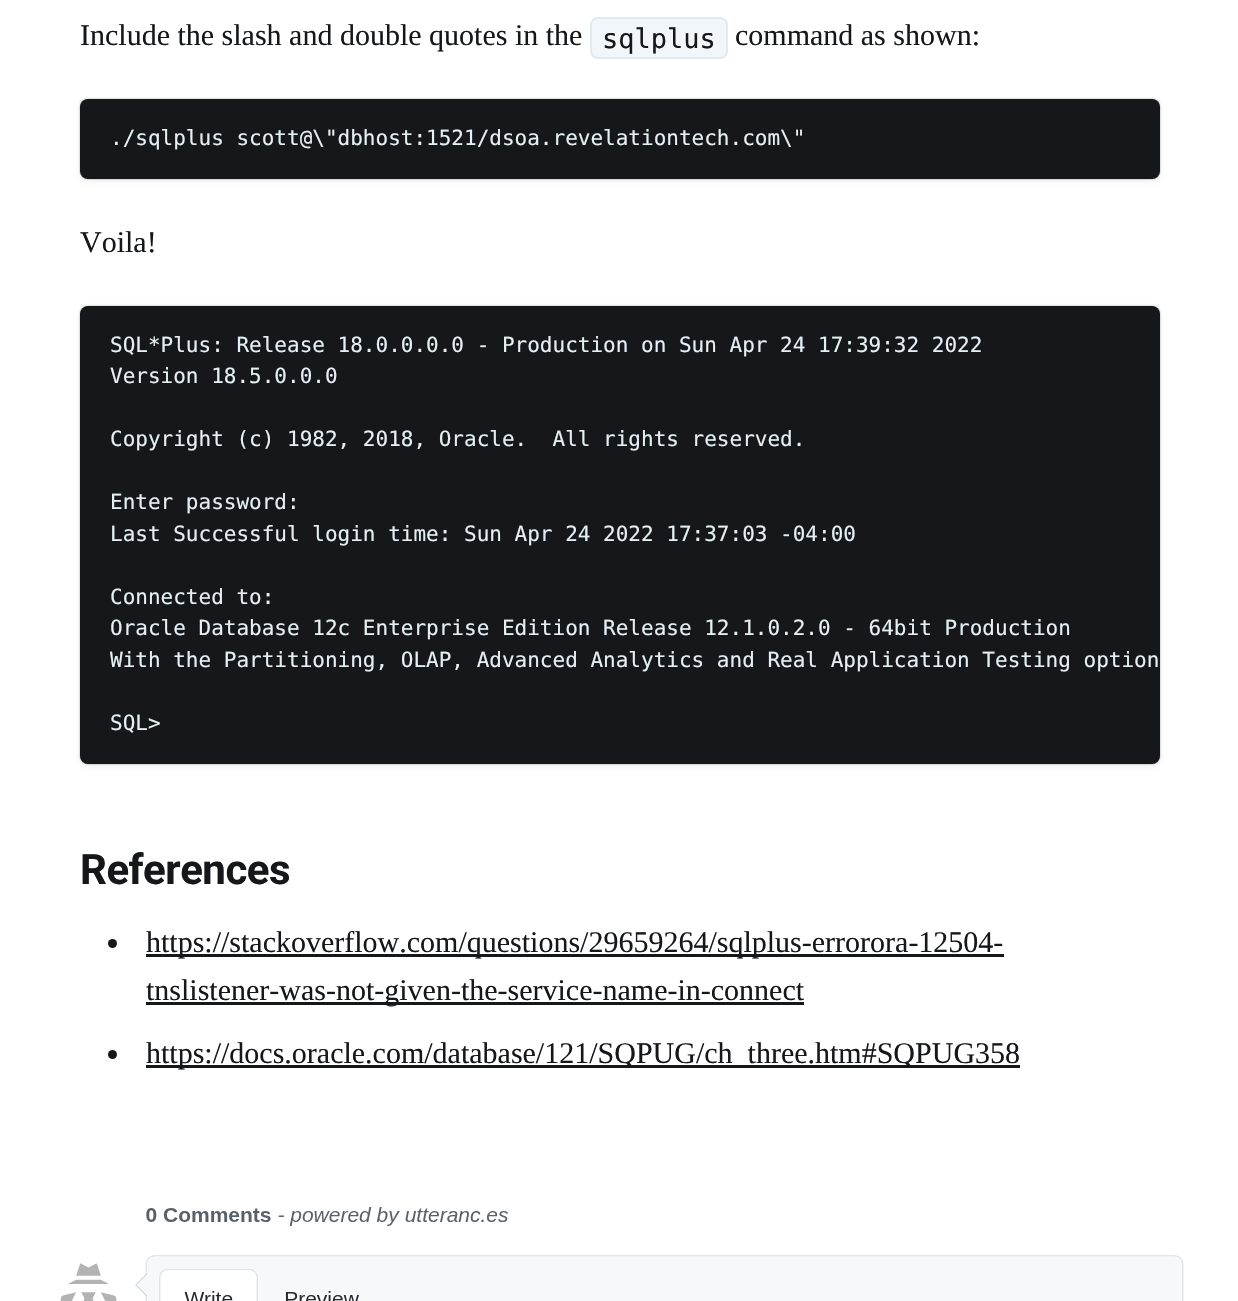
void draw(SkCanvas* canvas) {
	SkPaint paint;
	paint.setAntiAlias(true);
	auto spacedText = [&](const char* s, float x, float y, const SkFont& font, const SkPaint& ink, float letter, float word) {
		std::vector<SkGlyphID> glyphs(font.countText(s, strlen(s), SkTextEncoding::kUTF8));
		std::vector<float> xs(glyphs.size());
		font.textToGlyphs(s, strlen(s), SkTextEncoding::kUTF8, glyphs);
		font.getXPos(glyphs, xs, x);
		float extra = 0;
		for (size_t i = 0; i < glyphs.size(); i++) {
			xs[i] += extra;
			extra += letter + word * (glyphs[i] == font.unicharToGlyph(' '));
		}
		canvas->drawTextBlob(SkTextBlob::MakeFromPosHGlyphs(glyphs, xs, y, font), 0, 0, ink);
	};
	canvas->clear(0xffffffff);
	SkFont f1(fontMgr->matchFamilyStyle("Liberation Serif", SkFontStyle::Normal()), 30);
	f1.setSubpixel(true);
	paint.setColor(0xff15171a);
	canvas->drawString("Include the slash and double quotes in the", 80, 45, f1, paint);
	paint.setColor(0xfff0f6f9);
	canvas->drawRoundRect(SkRect::MakeXYWH(591, 18, 136, 40), 7, 7, paint);
	paint.setStroke(true);
	paint.setStrokeWidth(2);
	paint.setColor(0xffe1eaef);
	canvas->drawRoundRect(SkRect::MakeXYWH(591, 18, 136, 40), 7, 7, paint);
	SkFont f2(fontMgr->matchFamilyStyle("DejaVu Sans Mono", SkFontStyle::Normal()), 27);
	f2.setSubpixel(true);
	paint.setStroke(false);
	paint.setColor(0xff15171a);
	canvas->drawString("sqlplus", 602, 48, f2, paint);
	canvas->drawString("command as shown:", 735, 45, f1, paint);
	paint.setColor(0x66000000);
	paint.setMaskFilter(SkMaskFilter::MakeBlur(kNormal_SkBlurStyle, 1));
	canvas->drawRoundRect(SkRect::MakeXYWH(80, 99, 1080, 80), 8, 8, paint);
	paint.setMaskFilter(nullptr);
	paint.setColor(0x1a000000);
	paint.setMaskFilter(SkMaskFilter::MakeBlur(kNormal_SkBlurStyle, 4.5));
	canvas->drawRoundRect(SkRect::MakeXYWH(83, 105, 1074, 74), 5, 5, paint);
	paint.setMaskFilter(nullptr);
	paint.setColor(0xff15171a);
	canvas->drawRoundRect(SkRect::MakeXYWH(80, 99, 1080, 80), 8, 8, paint);
	SkFont f3(fontMgr->matchFamilyStyle("DejaVu Sans Mono", SkFontStyle::Normal()), 21);
	f3.setSubpixel(true);
	paint.setColor(0xffe5eff5);
	canvas->drawString("./sqlplus scott@\\\"dbhost:1521/dsoa.revelationtech.com\\\"", 110, 145, f3, paint);
	paint.setColor(0xff15171a);
	canvas->drawString("Voila!", 80, 252, f1, paint);
	paint.setColor(0x66000000);
	paint.setMaskFilter(SkMaskFilter::MakeBlur(kNormal_SkBlurStyle, 1));
	canvas->drawRoundRect(SkRect::MakeXYWH(80, 306, 1080, 458), 8, 8, paint);
	paint.setMaskFilter(nullptr);
	paint.setColor(0x1a000000);
	paint.setMaskFilter(SkMaskFilter::MakeBlur(kNormal_SkBlurStyle, 4.5));
	canvas->drawRoundRect(SkRect::MakeXYWH(83, 312, 1074, 452), 5, 5, paint);
	paint.setMaskFilter(nullptr);
	paint.setColor(0xff15171a);
	canvas->drawRoundRect(SkRect::MakeXYWH(80, 306, 1080, 458), 8, 8, paint);
	paint.setColor(0xffe5eff5);
	canvas->drawString("SQL*Plus: Release 18.0.0.0.0 - Production on Sun Apr 24 17:39:32 2022", 110, 352, f3, paint);
	canvas->drawString("Version 18.5.0.0.0", 110, 383, f3, paint);
	canvas->drawString("Copyright (c) 1982, 2018, Oracle.  All rights reserved.", 110, 446, f3, paint);
	canvas->drawString("Enter password:", 110, 509, f3, paint);
	canvas->drawString("Last Successful login time: Sun Apr 24 2022 17:37:03 -04:00", 110, 541, f3, paint);
	canvas->drawString("Connected to:", 110, 604, f3, paint);
	canvas->drawString("Oracle Database 12c Enterprise Edition Release 12.1.0.2.0 - 64bit Production", 110, 635, f3, paint);
	canvas->drawString("With the Partitioning, OLAP, Advanced Analytics and Real Application Testing option", 110, 667, f3, paint);
	canvas->drawString("SQL>", 110, 730, f3, paint);
	SkFont f4(fontMgr->matchFamilyStyle("Roboto", SkFontStyle::Bold()), 42);
	f4.setSubpixel(true);
	paint.setColor(0xff15171a);
	spacedText("References", 80, 884, f4, paint, -0.5, 0);
	canvas->drawCircle(112.5, 943.5, 4.5, paint);
	canvas->drawRect(SkRect::MakeXYWH(146, 954, 858, 3), paint);
	canvas->drawString("https://stackoverflow.com/questions/29659264/sqlplus-errorora-12504-", 146, 952, f1, paint);
	canvas->drawRect(SkRect::MakeXYWH(146, 1002, 658, 3), paint);
	canvas->drawString("tnslistener-was-not-given-the-service-name-in-connect", 146, 1000, f1, paint);
	canvas->drawCircle(112.5, 1054.5, 4.5, paint);
	canvas->drawRect(SkRect::MakeXYWH(146, 1065, 874, 3), paint);
	canvas->drawString("https://docs.oracle.com/database/121/SQPUG/ch_three.htm#SQPUG358", 146, 1063, f1, paint);
	canvas->drawImageRect(SkImages::DeferredFromEncodedData(SkData::MakeFromFileName("img1.png")), SkRect::MakeXYWH(60, 1207, 1124, 94), SkSamplingOptions());
}
